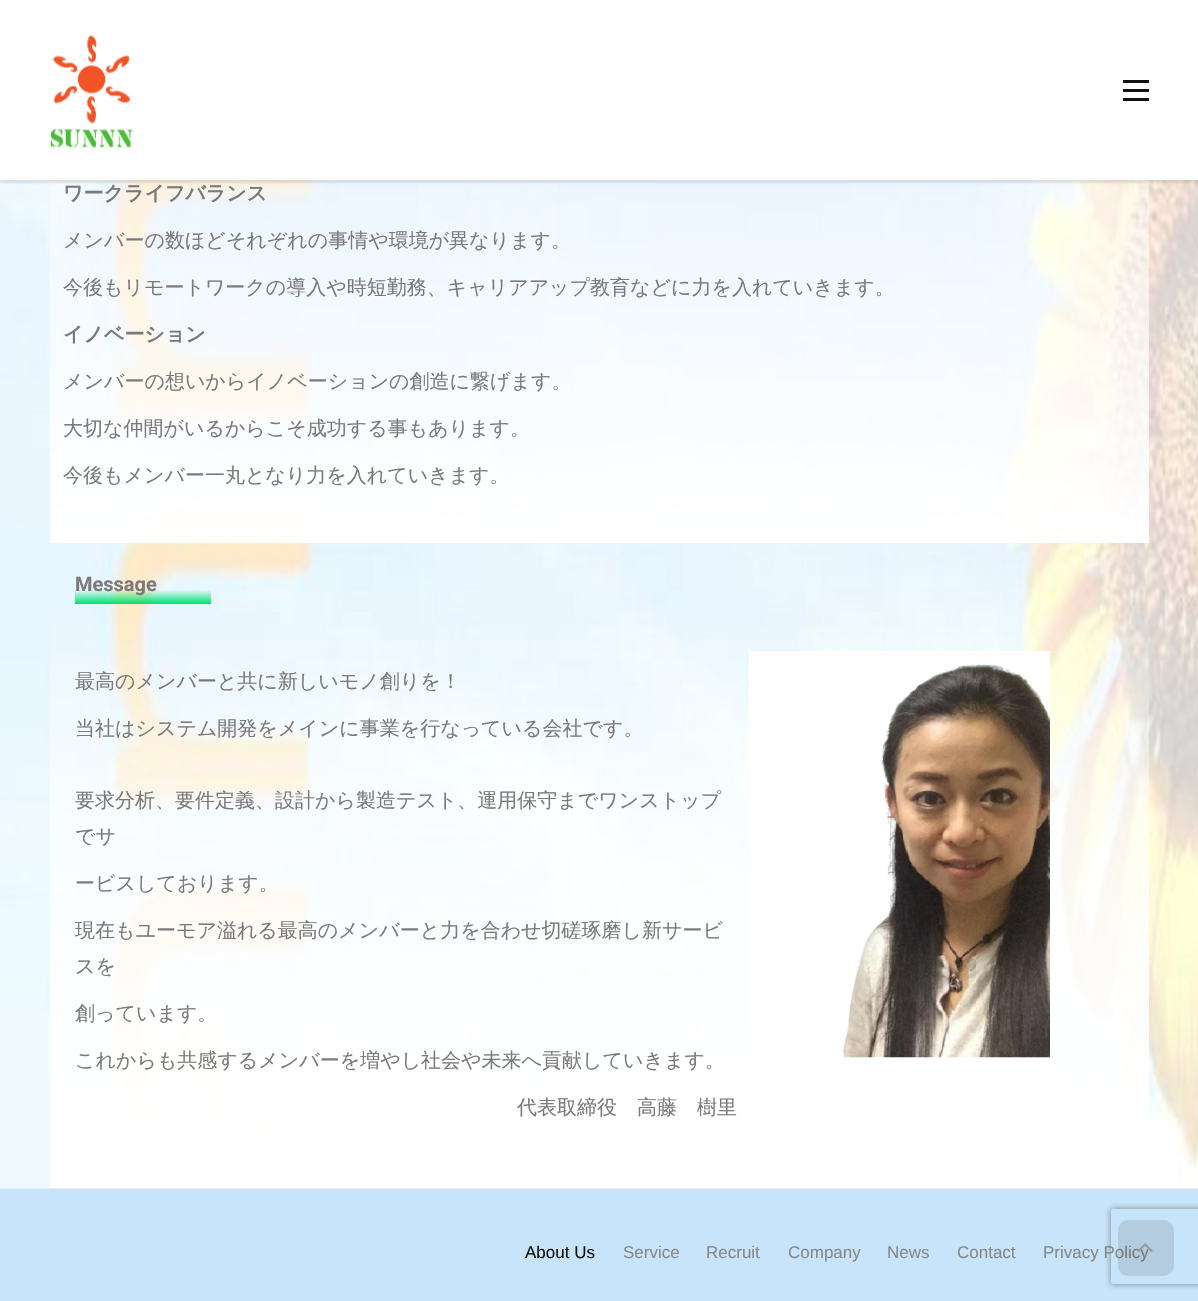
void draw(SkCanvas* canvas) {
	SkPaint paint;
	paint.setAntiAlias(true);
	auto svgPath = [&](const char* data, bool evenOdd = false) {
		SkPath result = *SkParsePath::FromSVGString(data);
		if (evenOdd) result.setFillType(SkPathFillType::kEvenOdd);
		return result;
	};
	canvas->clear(0xffffffff);
	canvas->drawImageRect(SkImages::DeferredFromEncodedData(SkData::MakeFromFileName("img1.png")), SkRect::MakeXYWH(0, 180, 1198, 1008), SkSamplingOptions());
	paint.setColor(0x1a000000);
	paint.setMaskFilter(SkMaskFilter::MakeBlur(kNormal_SkBlurStyle, 1));
	canvas->drawRect(SkRect::MakeXYWH(0, 3, 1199, 180), paint);
	paint.setMaskFilter(nullptr);
	paint.setColor(0xffffffff);
	canvas->drawRect(SkRect::MakeXYWH(0, 2, 1198, 178), paint);
	canvas->drawImageRect(SkImages::DeferredFromEncodedData(SkData::MakeFromFileName("img2.png")), SkRect::MakeXYWH(50, 35, 83, 113), SkSamplingOptions());
	paint.setColor(0xff111111);
	canvas->drawRect(SkRect::MakeXYWH(1123, 89, 26, 3), paint);
	canvas->drawRect(SkRect::MakeXYWH(1123, 80, 26, 3), paint);
	canvas->drawRect(SkRect::MakeXYWH(1123, 98, 26, 3), paint);
	SkFont f1(fontMgr->matchFamilyStyle("WenQuanYi Zen Hei", SkFontStyle::Bold()), 20);
	f1.setSubpixel(true);
	paint.setColor(0xff7a7a7a);
	canvas->drawString("ワークライフバランス", 63, 200, f1, paint);
	SkFont f2(fontMgr->matchFamilyStyle("WenQuanYi Zen Hei", SkFontStyle(500, SkFontStyle::kNormal_Width, SkFontStyle::kUpright_Slant)), 20);
	f2.setSubpixel(true);
	canvas->drawString("メンバーの数ほどそれぞれの事情や環境が異なります。", 63, 247, f2, paint);
	canvas->drawString("今後もリモートワークの導入や時短勤務、キャリアアップ教育などに力を入れていきます。", 63, 294, f2, paint);
	canvas->drawString("イノベーション", 63, 341, f1, paint);
	canvas->drawString("メンバーの想いからイノベーションの創造に繋げます。", 63, 388, f2, paint);
	canvas->drawString("大切な仲間がいるからこそ成功する事もあります。", 63, 435, f2, paint);
	canvas->drawString("今後もメンバー一丸となり力を入れていきます。", 63, 482, f2, paint);
	SkFont f3(fontMgr->matchFamilyStyle("Roboto", SkFontStyle::Bold()), 20);
	f3.setSubpixel(true);
	canvas->drawString("Message", 75, 591, f3, paint);
	canvas->drawString("最高のメンバーと共に新しいモノ創りを！", 75, 688, f2, paint);
	canvas->drawString("当社はシステム開発をメインに事業を行なっている会社です。", 75, 735, f2, paint);
	canvas->drawString("要求分析、要件定義、設計から製造テスト、運用保守までワンストップ", 75, 807, f2, paint);
	canvas->drawString("でサ", 75, 843, f2, paint);
	canvas->drawString("ービスしております。", 75, 890, f2, paint);
	canvas->drawString("現在もユーモア溢れる最高のメンバーと力を合わせ切磋琢磨し新サービ", 75, 937, f2, paint);
	canvas->drawString("スを", 75, 973, f2, paint);
	canvas->drawString("創っています。", 75, 1020, f2, paint);
	canvas->drawString("これからも共感するメンバーを増やし社会や未来へ貢献していきます。", 75, 1067, f2, paint);
	canvas->drawString("代表取締役　高藤　樹里", 517, 1114, f2, paint);
	canvas->drawImageRect(SkImages::DeferredFromEncodedData(SkData::MakeFromFileName("img3.png")), SkRect::MakeXYWH(748, 651, 302, 407), SkSamplingOptions());
	paint.setColor(0xffc7e4fa);
	canvas->drawRect(SkRect::MakeXYWH(0, 1189, 1198, 112), paint);
	paint.setColor(0xffeeeeee);
	canvas->drawRect(SkRect::MakeXYWH(0, 1188, 1198, 1), paint);
	SkFont f4(fontMgr->matchFamilyStyle("Liberation Sans", SkFontStyle::Normal()), 17);
	f4.setSubpixel(true);
	paint.setColor(0xff111111);
	canvas->drawString("About Us", 525, 1258, f4, paint);
	paint.setColor(0xff888888);
	canvas->drawString("Service", 623, 1258, f4, paint);
	canvas->drawString("Recruit", 706, 1258, f4, paint);
	canvas->drawString("Company", 788, 1258, f4, paint);
	canvas->drawString("News", 887, 1258, f4, paint);
	canvas->drawString("Contact", 957, 1258, f4, paint);
	canvas->drawString("Privacy Policy", 1043, 1258, f4, paint);
	canvas->save();
	canvas->clipPath(svgPath("M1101 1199H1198V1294H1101ZM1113.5 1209H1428.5C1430 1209 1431 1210 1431 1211.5V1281.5C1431 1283 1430 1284 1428.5 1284H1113.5C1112 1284 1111 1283 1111 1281.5V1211.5C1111 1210 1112 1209 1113.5 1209Z", true), true);
	paint.setColor(0xff808080);
	paint.setMaskFilter(SkMaskFilter::MakeBlur(kNormal_SkBlurStyle, 3));
	canvas->drawRoundRect(SkRect::MakeXYWH(1111, 1209, 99, 75), 2.5, 2.5, paint);
	paint.setMaskFilter(nullptr);
	canvas->restore();
	paint.setColor(0x1a000000);
	canvas->drawRoundRect(SkRect::MakeXYWH(1118, 1220, 56, 56), 10, 10, paint);
	canvas->drawImageRect(SkImages::DeferredFromEncodedData(SkData::MakeFromFileName("img4.png")), SkRect::MakeXYWH(1137, 1243, 16, 9), SkSamplingOptions());
}
